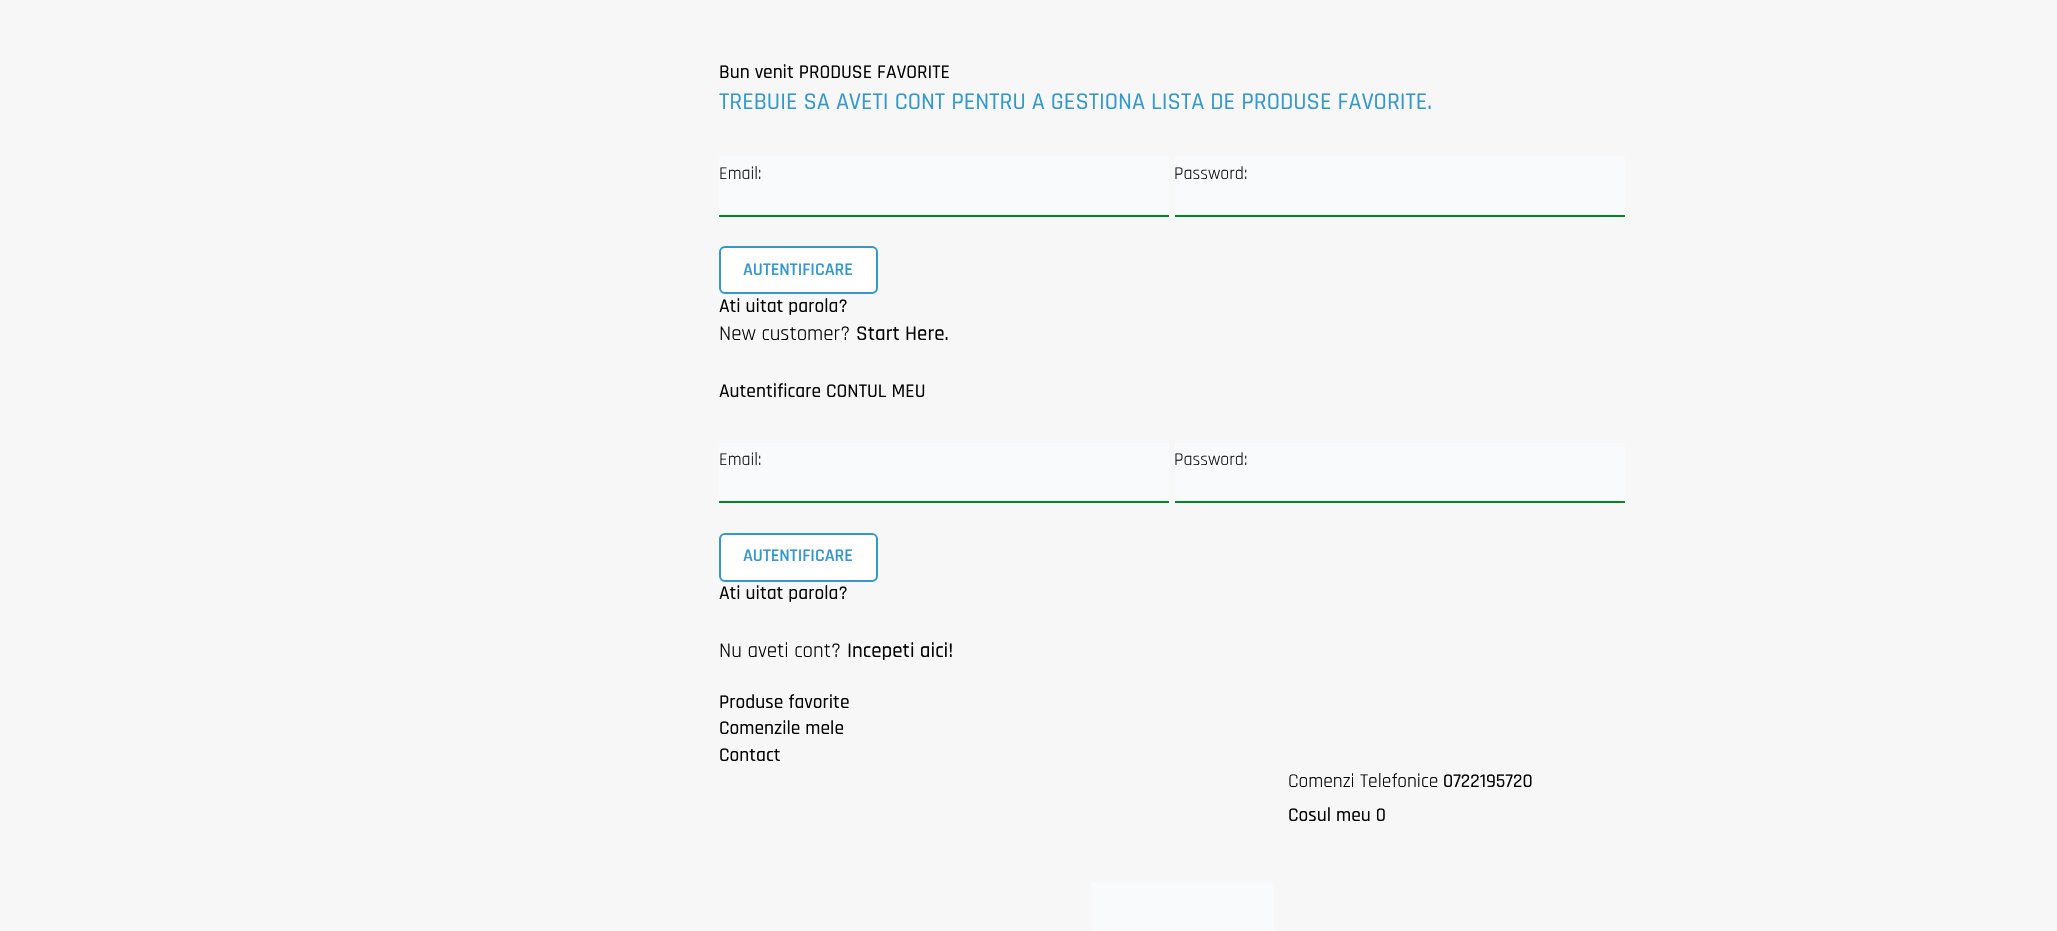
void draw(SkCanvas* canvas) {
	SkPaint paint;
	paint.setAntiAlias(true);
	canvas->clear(0xfff7f7f7);
	SkFont f1(fontMgr->matchFamilyStyle("Rajdhani", SkFontStyle(500, SkFontStyle::kNormal_Width, SkFontStyle::kUpright_Slant)), 19.5);
	f1.setSubpixel(true);
	paint.setColor(0xff000000);
	canvas->drawString("Bun venit PRODUSE FAVORITE", 719, 78, f1, paint);
	SkFont f2(fontMgr->matchFamilyStyle("Rajdhani", SkFontStyle(500, SkFontStyle::kNormal_Width, SkFontStyle::kUpright_Slant)), 24);
	f2.setSubpixel(true);
	paint.setColor(0xff3399cc);
	canvas->drawString("TREBUIE SA AVETI CONT PENTRU A GESTIONA LISTA DE PRODUSE FAVORITE.", 719, 109, f2, paint);
	paint.setColor(0xfff8fafb);
	canvas->drawRect(SkRect::MakeXYWH(719, 156, 450, 59), paint);
	paint.setColor(0xff008923);
	canvas->drawRect(SkRect::MakeXYWH(719, 215, 450, 2), paint);
	SkFont f3(fontMgr->matchFamilyStyle("Rajdhani", SkFontStyle::Normal()), 18);
	f3.setSubpixel(true);
	paint.setColor(0xff121212);
	canvas->drawString("Email:", 719, 179, f3, paint);
	paint.setColor(0xfff8fafb);
	canvas->drawRect(SkRect::MakeXYWH(1175, 156, 450, 59), paint);
	paint.setColor(0xff008923);
	canvas->drawRect(SkRect::MakeXYWH(1175, 215, 450, 2), paint);
	paint.setColor(0xff121212);
	canvas->drawString("Password:", 1174, 179, f3, paint);
	paint.setColor(0xffffffff);
	canvas->drawRoundRect(SkRect::MakeXYWH(720, 247, 157, 46), 5, 5, paint);
	paint.setStroke(true);
	paint.setStrokeWidth(2);
	paint.setColor(0xff3399cc);
	canvas->drawRoundRect(SkRect::MakeXYWH(720, 247, 157, 46), 5, 5, paint);
	SkFont f4(fontMgr->matchFamilyStyle("Rajdhani", SkFontStyle(600, SkFontStyle::kNormal_Width, SkFontStyle::kUpright_Slant)), 18);
	f4.setSubpixel(true);
	paint.setStroke(false);
	canvas->drawString("AUTENTIFICARE", 743, 275, f4, paint);
	paint.setColor(0xff000000);
	canvas->drawString("Ati uitat parola?", 719, 312, f1, paint);
	SkFont f5(fontMgr->matchFamilyStyle("Rajdhani", SkFontStyle::Normal()), 21);
	f5.setSubpixel(true);
	canvas->drawString("New customer?", 719, 340, f5, paint);
	SkFont f6(fontMgr->matchFamilyStyle("Rajdhani", SkFontStyle(500, SkFontStyle::kNormal_Width, SkFontStyle::kUpright_Slant)), 21);
	f6.setSubpixel(true);
	canvas->drawString("Start Here.", 856, 340, f6, paint);
	canvas->drawString("Autentificare CONTUL MEU", 719, 397, f1, paint);
	paint.setColor(0xfff8fafb);
	canvas->drawRect(SkRect::MakeXYWH(719, 443, 450, 58), paint);
	paint.setColor(0xff008923);
	canvas->drawRect(SkRect::MakeXYWH(719, 501, 450, 2), paint);
	paint.setColor(0xff121212);
	canvas->drawString("Email:", 719, 465, f3, paint);
	paint.setColor(0xfff8fafb);
	canvas->drawRect(SkRect::MakeXYWH(1175, 443, 450, 58), paint);
	paint.setColor(0xff008923);
	canvas->drawRect(SkRect::MakeXYWH(1175, 501, 450, 2), paint);
	paint.setColor(0xff121212);
	canvas->drawString("Password:", 1174, 465, f3, paint);
	paint.setColor(0xffffffff);
	canvas->drawRoundRect(SkRect::MakeXYWH(720, 534, 157, 47), 5, 5, paint);
	paint.setStroke(true);
	paint.setColor(0xff3399cc);
	canvas->drawRoundRect(SkRect::MakeXYWH(720, 534, 157, 47), 5, 5, paint);
	paint.setStroke(false);
	canvas->drawString("AUTENTIFICARE", 743, 561, f4, paint);
	paint.setColor(0xff000000);
	canvas->drawString("Ati uitat parola?", 719, 599, f1, paint);
	canvas->drawString("Nu aveti cont?", 719, 657, f5, paint);
	canvas->drawString("Incepeti aici!", 847, 657, f6, paint);
	canvas->drawString("Produse favorite", 719, 708, f1, paint);
	canvas->drawString("Comenzile mele", 719, 734, f1, paint);
	canvas->drawString("Contact", 719, 761, f1, paint);
	SkFont f7(fontMgr->matchFamilyStyle("Rajdhani", SkFontStyle::Normal()), 19.5);
	f7.setSubpixel(true);
	canvas->drawString("Comenzi Telefonice", 1288, 787, f7, paint);
	canvas->drawString("0722195720", 1443, 787, f1, paint);
	canvas->drawString("Cosul meu 0", 1288, 821, f1, paint);
	paint.setColor(0xfff8fafb);
	canvas->drawRect(SkRect::MakeXYWH(1091, 882, 183, 49), paint);
}
